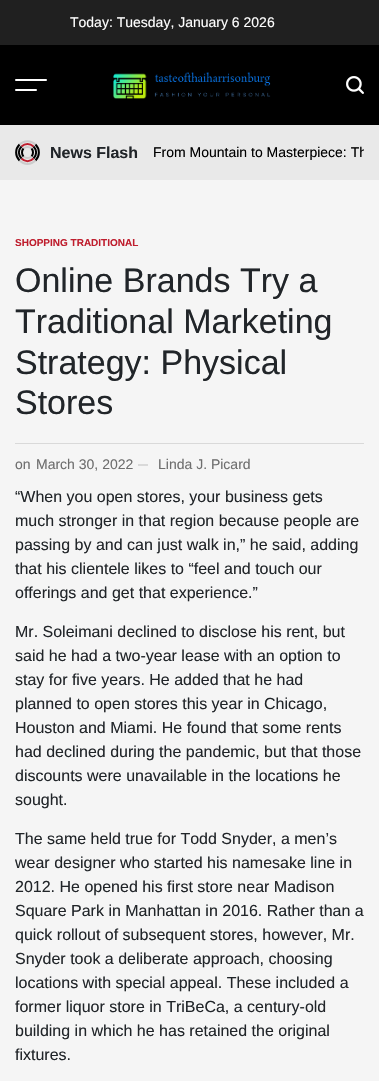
void draw(SkCanvas* canvas) {
	SkPaint paint;
	paint.setAntiAlias(true);
	auto svgPath = [&](const char* data, bool evenOdd = false) {
		SkPath result = *SkParsePath::FromSVGString(data);
		if (evenOdd) result.setFillType(SkPathFillType::kEvenOdd);
		return result;
	};
	canvas->clear(0xfff5f5f5);
	paint.setColor(0xff202020);
	canvas->drawRect(SkRect::MakeXYWH(0, 0, 379, 45), paint);
	SkFont f1(fontMgr->matchFamilyStyle("Liberation Sans", SkFontStyle::Normal()), 14);
	f1.setSubpixel(true);
	paint.setColor(0xffffffff);
	canvas->drawString("Today: Tuesday, January 6 2026", 70, 27, f1, paint);
	paint.setColor(0xff000000);
	canvas->drawRect(SkRect::MakeXYWH(0, 45, 379, 80), paint);
	paint.setColor(0xffffffff);
	canvas->drawRoundRect(SkRect::MakeXYWH(15, 79, 32, 2), 1, 1, paint);
	canvas->drawRoundRect(SkRect::MakeXYWH(15, 89, 22, 2), 1, 1, paint);
	canvas->drawImageRect(SkImages::DeferredFromEncodedData(SkData::MakeFromFileName("img1.png")), SkRect::MakeXYWH(113, 72, 158, 27), SkSamplingOptions());
	canvas->drawImageRect(SkImages::DeferredFromEncodedData(SkData::MakeFromFileName("img2.png")), SkRect::MakeXYWH(346, 76, 18, 18), SkSamplingOptions());
	paint.setColor(0xffe9e9e9);
	canvas->drawRect(SkRect::MakeXYWH(0, 125, 379, 55), paint);
	paint.setStroke(true);
	paint.setStrokeWidth(2);
	paint.setColor(0xffcccccc);
	canvas->drawPath(svgPath("M19.5 144.5C24 140 31 140 35.5 144.5"), paint);
	paint.setColor(0xff000000);
	canvas->drawPath(svgPath("M35.5 144.5C40 149 40 156 35.5 160.5"), paint);
	paint.setColor(0xffcccccc);
	canvas->drawPath(svgPath("M35.5 160.5C31 165 24 165 19.5 160.5"), paint);
	paint.setColor(0xff000000);
	canvas->drawPath(svgPath("M19.5 160.5C15 156 15 149 19.5 144.5"), paint);
	paint.setColor(0xffbf1e2e);
	canvas->drawPath(svgPath("M21.5 146.5C25 143 30 143 33.5 146.5"), paint);
	paint.setColor(0xff000000);
	canvas->drawPath(svgPath("M33.5 146.5C37 150 37 155 33.5 158.5"), paint);
	paint.setColor(0xffbf1e2e);
	canvas->drawPath(svgPath("M33.5 158.5C30 162 25 162 21.5 158.5"), paint);
	paint.setColor(0xff000000);
	canvas->drawPath(svgPath("M21.5 158.5C18 155 18 150 21.5 146.5"), paint);
	paint.setColor(0xffcccccc);
	canvas->drawPath(svgPath("M23.5 148.5C25.5 146.5 29.5 146.5 31.5 148.5"), paint);
	paint.setColor(0xff000000);
	canvas->drawPath(svgPath("M31.5 148.5C33.5 150.5 33.5 154.5 31.5 156.5"), paint);
	paint.setColor(0xffcccccc);
	canvas->drawPath(svgPath("M31.5 156.5C29.5 158.5 25.5 158.5 23.5 156.5"), paint);
	paint.setColor(0xff000000);
	canvas->drawPath(svgPath("M23.5 156.5C21.5 154.5 21.5 150.5 23.5 148.5"), paint);
	SkFont f2(fontMgr->matchFamilyStyle("Liberation Sans", SkFontStyle::Bold()), 16);
	f2.setSubpixel(true);
	paint.setStroke(false);
	paint.setColor(0xff212529);
	canvas->drawString("News Flash", 50, 158, f2, paint);
	canvas->save();
	canvas->clipRect(SkRect::MakeXYWH(153, 133, 211, 40));
	paint.setColor(0xff000000);
	canvas->drawString("From Mountain to Masterpiece: Th", 153, 157, f1, paint);
	canvas->restore();
	SkFont f3(fontMgr->matchFamilyStyle("Liberation Sans", SkFontStyle::Bold()), 10);
	f3.setSubpixel(true);
	paint.setColor(0xffbf1e2e);
	canvas->drawString("SHOPPING TRADITIONAL", 15, 246, f3, paint);
	SkFont f4(fontMgr->matchFamilyStyle("Liberation Sans", SkFontStyle::Normal()), 34);
	f4.setSubpixel(true);
	paint.setColor(0xff212529);
	canvas->drawString("Online Brands Try a", 15, 292, f4, paint);
	canvas->drawString("Traditional Marketing", 15, 333, f4, paint);
	canvas->drawString("Strategy: Physical", 15, 374, f4, paint);
	canvas->drawString("Stores", 15, 414, f4, paint);
	paint.setColor(0xffd9d9d9);
	canvas->drawRect(SkRect::MakeXYWH(15, 443, 349, 1), paint);
	paint.setColor(0xff6e6e6e);
	canvas->drawString("on", 15, 469, f1, paint);
	canvas->drawString("March 30, 2022", 36, 469, f1, paint);
	paint.setColor(0xffd9d9d9);
	canvas->drawRect(SkRect::MakeXYWH(138, 464, 10, 2), paint);
	paint.setColor(0xff6e6e6e);
	canvas->drawString("Linda J. Picard", 158, 469, f1, paint);
	SkFont f5(fontMgr->matchFamilyStyle("Liberation Sans", SkFontStyle::Normal()), 16);
	f5.setSubpixel(true);
	paint.setColor(0xff212529);
	canvas->drawString("“When you open stores, your business gets", 15, 502, f5, paint);
	canvas->drawString("much stronger in that region because people are", 15, 526, f5, paint);
	canvas->drawString("passing by and can just walk in,” he said, adding", 15, 550, f5, paint);
	canvas->drawString("that his clientele likes to “feel and touch our", 15, 574, f5, paint);
	canvas->drawString("offerings and get that experience.”", 15, 598, f5, paint);
	canvas->drawString("Mr. Soleimani declined to disclose his rent, but", 15, 637, f5, paint);
	canvas->drawString("said he had a two-year lease with an option to", 15, 661, f5, paint);
	canvas->drawString("stay for five years. He added that he had", 15, 685, f5, paint);
	canvas->drawString("planned to open stores this year in Chicago,", 15, 709, f5, paint);
	canvas->drawString("Houston and Miami. He found that some rents", 15, 733, f5, paint);
	canvas->drawString("had declined during the pandemic, but that those", 15, 757, f5, paint);
	canvas->drawString("discounts were unavailable in the locations he", 15, 781, f5, paint);
	canvas->drawString("sought.", 15, 805, f5, paint);
	canvas->drawString("The same held true for Todd Snyder, a men’s", 15, 844, f5, paint);
	canvas->drawString("wear designer who started his namesake line in", 15, 868, f5, paint);
	canvas->drawString("2012. He opened his first store near Madison", 15, 892, f5, paint);
	canvas->drawString("Square Park in Manhattan in 2016. Rather than a", 15, 916, f5, paint);
	canvas->drawString("quick rollout of subsequent stores, however, Mr.", 15, 940, f5, paint);
	canvas->drawString("Snyder took a deliberate approach, choosing", 15, 964, f5, paint);
	canvas->drawString("locations with special appeal. These included a", 15, 988, f5, paint);
	canvas->drawString("former liquor store in TriBeCa, a century-old", 15, 1012, f5, paint);
	canvas->drawString("building in which he has retained the original", 15, 1036, f5, paint);
	canvas->drawString("fixtures.", 15, 1060, f5, paint);
}
